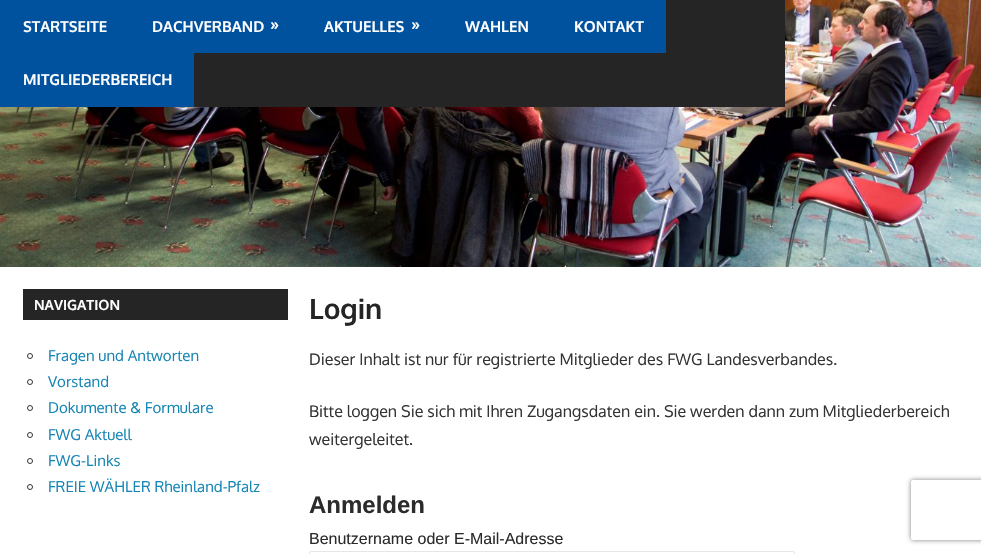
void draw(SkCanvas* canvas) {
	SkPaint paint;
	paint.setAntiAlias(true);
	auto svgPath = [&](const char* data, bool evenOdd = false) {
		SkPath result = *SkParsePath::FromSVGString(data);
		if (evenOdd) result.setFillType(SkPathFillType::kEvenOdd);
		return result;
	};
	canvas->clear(0xffffffff);
	canvas->drawImageRect(SkImages::DeferredFromEncodedData(SkData::MakeFromFileName("img1.png")), SkRect::MakeXYWH(0, 0, 981, 267), SkSamplingOptions());
	paint.setColor(0xff252525);
	canvas->drawRect(SkRect::MakeXYWH(194, 0, 591, 107), paint);
	paint.setColor(0xff00519e);
	canvas->drawRect(SkRect::MakeXYWH(0, 0, 666, 53), paint);
	SkFont f1(fontMgr->matchFamilyStyle("Oxygen", SkFontStyle::Bold()), 15);
	f1.setSubpixel(true);
	paint.setColor(0xffffffff);
	canvas->drawString("STARTSEITE", 23, 32, f1, paint);
	canvas->drawString("DACHVERBAND", 152, 32, f1, paint);
	SkFont f2(fontMgr->matchFamilyStyle("Oxygen", SkFontStyle::Bold()), 16);
	f2.setSubpixel(true);
	canvas->drawString("»", 270, 30, f2, paint);
	canvas->drawString("AKTUELLES", 324, 32, f1, paint);
	canvas->drawString("»", 411, 30, f2, paint);
	canvas->drawString("WAHLEN", 465, 32, f1, paint);
	canvas->drawString("KONTAKT", 574, 32, f1, paint);
	paint.setColor(0xff00519e);
	canvas->drawRect(SkRect::MakeXYWH(0, 53, 194, 54), paint);
	paint.setColor(0xffffffff);
	canvas->drawString("MITGLIEDERBEREICH", 23, 85, f1, paint);
	paint.setColor(0xff252525);
	canvas->drawRect(SkRect::MakeXYWH(23, 289, 265, 31), paint);
	SkFont f3(fontMgr->matchFamilyStyle("Oxygen", SkFontStyle::Bold()), 14);
	f3.setSubpixel(true);
	paint.setColor(0xffffffff);
	canvas->drawString("NAVIGATION", 34, 310, f3, paint);
	paint.setStroke(true);
	paint.setStrokeWidth(1);
	paint.setColor(0xff333333);
	canvas->drawCircle(30, 356, 2.5, paint);
	SkFont f4(fontMgr->matchFamilyStyle("Oxygen", SkFontStyle::Normal()), 15);
	f4.setSubpixel(true);
	paint.setStroke(false);
	paint.setColor(0xff1585b5);
	canvas->drawString("Fragen und Antworten", 48, 361, f4, paint);
	paint.setStroke(true);
	paint.setColor(0xff333333);
	canvas->drawCircle(30, 382, 2.5, paint);
	paint.setStroke(false);
	paint.setColor(0xff1585b5);
	canvas->drawString("Vorstand", 48, 387, f4, paint);
	paint.setStroke(true);
	paint.setColor(0xff333333);
	canvas->drawCircle(30, 408, 2.5, paint);
	paint.setStroke(false);
	paint.setColor(0xff1585b5);
	canvas->drawString("Dokumente & Formulare", 48, 413, f4, paint);
	paint.setStroke(true);
	paint.setColor(0xff333333);
	canvas->drawCircle(30, 435, 2.5, paint);
	paint.setStroke(false);
	paint.setColor(0xff1585b5);
	canvas->drawString("FWG Aktuell", 48, 440, f4, paint);
	paint.setStroke(true);
	paint.setColor(0xff333333);
	canvas->drawCircle(30, 461, 2.5, paint);
	paint.setStroke(false);
	paint.setColor(0xff1585b5);
	canvas->drawString("FWG-Links", 48, 466, f4, paint);
	paint.setStroke(true);
	paint.setColor(0xff333333);
	canvas->drawCircle(30, 487, 2.5, paint);
	paint.setStroke(false);
	paint.setColor(0xff1585b5);
	canvas->drawString("FREIE WÄHLER Rheinland-Pfalz", 48, 492, f4, paint);
	SkFont f5(fontMgr->matchFamilyStyle("Oxygen", SkFontStyle::Bold()), 28);
	f5.setSubpixel(true);
	paint.setColor(0xff252525);
	canvas->drawString("Login", 309, 319, f5, paint);
	SkFont f6(fontMgr->matchFamilyStyle("Oxygen", SkFontStyle::Normal()), 16);
	f6.setSubpixel(true);
	paint.setColor(0xff333333);
	canvas->drawString("Dieser Inhalt ist nur für registrierte Mitglieder des FWG Landesverbandes.", 309, 365, f6, paint);
	canvas->drawString("Bitte loggen Sie sich mit Ihren Zugangsdaten ein. Sie werden dann zum Mitgliederbereich", 309, 417, f6, paint);
	canvas->drawString("weitergeleitet.", 309, 445, f6, paint);
	SkFont f7(fontMgr->matchFamilyStyle("Liberation Sans", SkFontStyle::Bold()), 24);
	f7.setSubpixel(true);
	paint.setColor(0xff2b2b2b);
	canvas->drawString("Anmelden", 309, 513, f7, paint);
	SkFont f8(fontMgr->matchFamilyStyle("Liberation Sans", SkFontStyle::Normal()), 16);
	f8.setSubpixel(true);
	canvas->drawString("Benutzername oder E-Mail-Adresse", 309, 544, f8, paint);
	paint.setStroke(true);
	paint.setColor(0xffe6e6e6);
	canvas->drawRoundRect(SkRect::MakeXYWH(309.5, 551.5, 485, 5), 1.5, 1.5, paint);
	canvas->save();
	canvas->clipPath(svgPath("M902 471H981V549H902ZM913 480H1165C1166 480 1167 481 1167 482V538C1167 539 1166 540 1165 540H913C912 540 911 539 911 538V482C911 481 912 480 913 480Z", true), true);
	paint.setStroke(false);
	paint.setColor(0xff808080);
	paint.setMaskFilter(SkMaskFilter::MakeBlur(kNormal_SkBlurStyle, 2.5));
	canvas->drawRoundRect(SkRect::MakeXYWH(911, 480, 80, 60), 2, 2, paint);
	paint.setMaskFilter(nullptr);
	canvas->restore();
}
